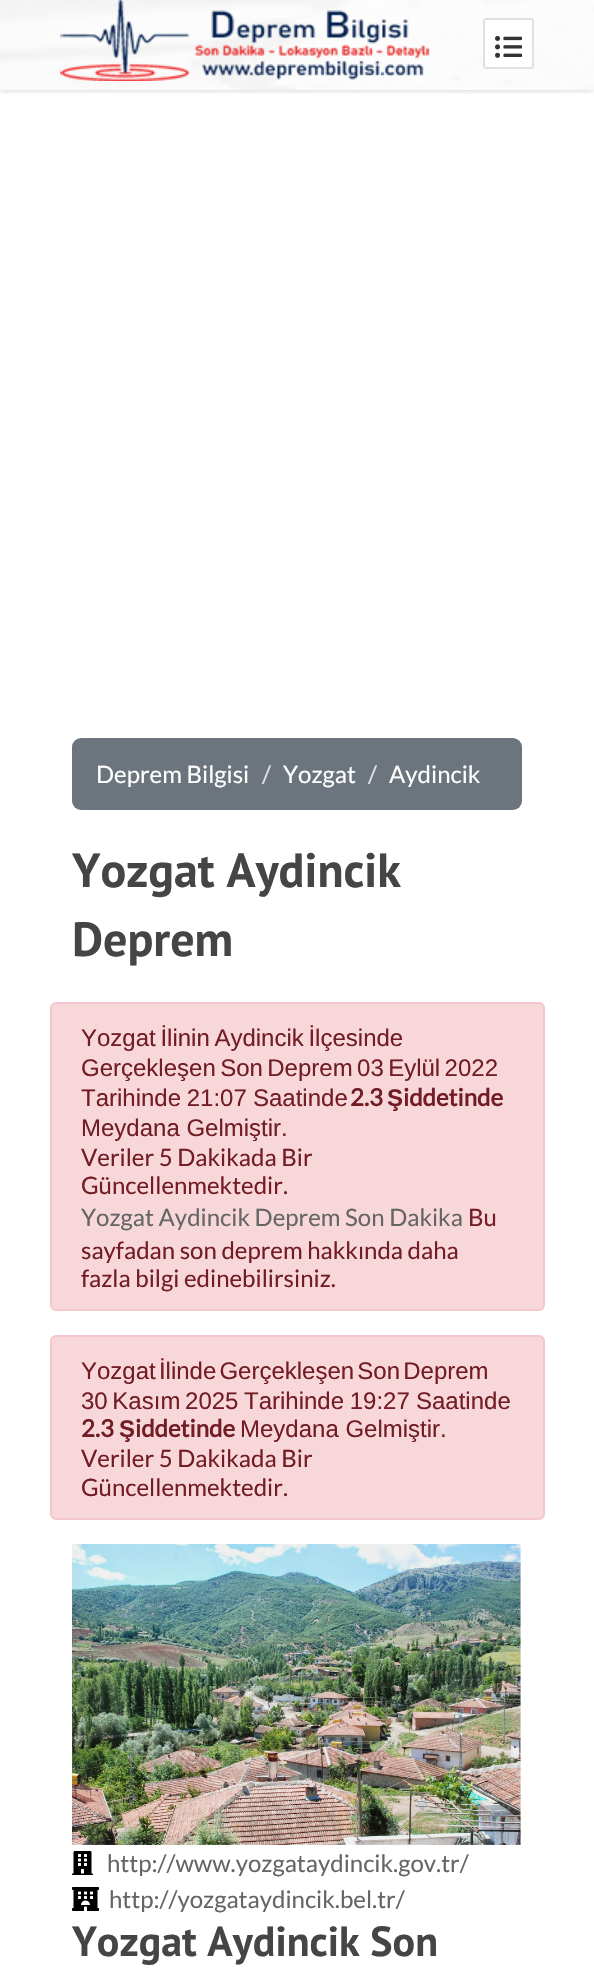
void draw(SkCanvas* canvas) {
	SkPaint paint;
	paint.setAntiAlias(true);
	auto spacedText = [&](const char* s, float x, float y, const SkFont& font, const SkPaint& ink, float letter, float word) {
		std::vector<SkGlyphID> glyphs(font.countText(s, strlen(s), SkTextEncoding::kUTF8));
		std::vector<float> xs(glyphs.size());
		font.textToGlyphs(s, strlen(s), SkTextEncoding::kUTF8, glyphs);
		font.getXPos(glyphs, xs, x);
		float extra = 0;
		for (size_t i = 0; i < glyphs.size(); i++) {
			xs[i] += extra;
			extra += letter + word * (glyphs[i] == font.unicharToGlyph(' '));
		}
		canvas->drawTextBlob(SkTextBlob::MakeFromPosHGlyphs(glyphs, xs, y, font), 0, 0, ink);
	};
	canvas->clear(0xffffffff);
	canvas->drawImageRect(SkImages::DeferredFromEncodedData(SkData::MakeFromFileName("img1.png")), SkRect::MakeXYWH(0, 0, 594, 90), SkSamplingOptions());
	canvas->save();
	canvas->clipRect(SkRect::MakeXYWH(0, 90, 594, 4));
	paint.setColor(0x33000000);
	paint.setMaskFilter(SkMaskFilter::MakeBlur(kNormal_SkBlurStyle, 3));
	canvas->drawRect(SkRect::MakeXYWH(0, 0, 594, 90), paint);
	paint.setMaskFilter(nullptr);
	canvas->restore();
	canvas->drawImageRect(SkImages::DeferredFromEncodedData(SkData::MakeFromFileName("img2.png")), SkRect::MakeXYWH(60, 0, 370, 81), SkSamplingOptions());
	paint.setColor(0xffffffff);
	canvas->drawRoundRect(SkRect::MakeXYWH(484, 19, 49, 49), 2, 2, paint);
	paint.setStroke(true);
	paint.setStrokeWidth(2);
	paint.setColor(0xffe1e1e1);
	canvas->drawRoundRect(SkRect::MakeXYWH(484, 19, 49, 49), 2, 2, paint);
	canvas->drawImageRect(SkImages::DeferredFromEncodedData(SkData::MakeFromFileName("img3.png")), SkRect::MakeXYWH(495, 35, 27, 23), SkSamplingOptions());
	paint.setStroke(false);
	paint.setColor(0xff6c757d);
	canvas->drawRoundRect(SkRect::MakeXYWH(72, 738, 450, 72), 9, 9, paint);
	SkFont f1(fontMgr->matchFamilyStyle("Lato", SkFontStyle::Normal()), 24);
	f1.setSubpixel(true);
	paint.setColor(0xffffffff);
	canvas->drawString("Deprem Bilgisi", 96, 783, f1, paint);
	paint.setColor(0xffdee2e6);
	canvas->drawString("/", 262, 783, f1, paint);
	paint.setColor(0xffffffff);
	canvas->drawString("Yozgat", 283, 783, f1, paint);
	paint.setColor(0xffdee2e6);
	canvas->drawString("/", 368, 783, f1, paint);
	paint.setColor(0xffffffff);
	canvas->drawString("Aydincik", 389, 783, f1, paint);
	SkFont f2(fontMgr->matchFamilyStyle("PT Sans", SkFontStyle::Bold()), 48);
	f2.setSubpixel(true);
	paint.setColor(0xff454545);
	canvas->drawString("Yozgat Aydincik", 72, 887, f2, paint);
	canvas->drawString("Deprem", 72, 956, f2, paint);
	paint.setColor(0xfff8d7da);
	canvas->drawRoundRect(SkRect::MakeXYWH(51, 1003, 493, 307), 5, 5, paint);
	paint.setStroke(true);
	paint.setColor(0xfff5c6cb);
	canvas->drawRoundRect(SkRect::MakeXYWH(51, 1003, 493, 307), 5, 5, paint);
	SkFont f3(fontMgr->matchFamilyStyle("Liberation Sans", SkFontStyle::Normal()), 24);
	f3.setSubpixel(true);
	paint.setStroke(false);
	paint.setColor(0xff721c24);
	spacedText("Yozgat İlinin Aydincik İlçesinde", 81, 1046, f3, paint, 0, -2);
	spacedText("Gerçekleşen Son Deprem 03 Eylül 2022", 81, 1076, f3, paint, 0, -2.25);
	spacedText("Tarihinde 21:07", 81, 1106, f3, paint, 0, -1);
	canvas->drawString("Saatinde", 253, 1106, f3, paint);
	SkFont f4(fontMgr->matchFamilyStyle("Lato", SkFontStyle::Bold()), 24);
	f4.setSubpixel(true);
	canvas->drawString("2.3", 350, 1106, f4, paint);
	SkFont f5(fontMgr->matchFamilyStyle("Liberation Sans", SkFontStyle::Bold()), 24);
	f5.setSubpixel(true);
	canvas->drawString("Ş", 387, 1106, f5, paint);
	canvas->drawString("iddetinde", 403, 1106, f4, paint);
	canvas->drawString("Meydana Gelmiştir.", 81, 1136, f3, paint);
	canvas->drawString("Veriler 5 Dakikada Bir", 81, 1166, f1, paint);
	canvas->drawString("Güncellenmektedir.", 81, 1194, f1, paint);
	paint.setColor(0xff656565);
	canvas->drawString("Yozgat Aydincik Deprem Son Dakika", 81, 1226, f1, paint);
	paint.setColor(0xff721c24);
	canvas->drawString("Bu", 468, 1226, f1, paint);
	canvas->drawString("sayfadan son deprem hakkında daha", 81, 1259, f1, paint);
	canvas->drawString("fazla bilgi edinebilirsiniz.", 81, 1287, f1, paint);
	paint.setColor(0xfff8d7da);
	canvas->drawRoundRect(SkRect::MakeXYWH(51, 1336, 493, 183), 5, 5, paint);
	paint.setStroke(true);
	paint.setColor(0xfff5c6cb);
	canvas->drawRoundRect(SkRect::MakeXYWH(51, 1336, 493, 183), 5, 5, paint);
	paint.setStroke(false);
	paint.setColor(0xff721c24);
	spacedText("Yozgat İlinde Gerçekleşen Son Deprem", 81, 1379, f3, paint, 0, -3.5);
	spacedText("30 Kasım 2025", 81, 1409, f3, paint, 0, -2);
	spacedText("Tarihinde 19:27", 244, 1409, f3, paint, 0, -1);
	canvas->drawString("Saatinde", 416, 1409, f3, paint);
	canvas->drawString("2.3", 81, 1437, f4, paint);
	canvas->drawString("Ş", 119, 1437, f5, paint);
	canvas->drawString("iddetinde", 135, 1437, f4, paint);
	canvas->drawString("Meydana Gelmiştir.", 240, 1437, f3, paint);
	canvas->drawString("Veriler 5 Dakikada Bir", 81, 1467, f1, paint);
	canvas->drawString("Güncellenmektedir.", 81, 1496, f1, paint);
	canvas->drawImageRect(SkImages::DeferredFromEncodedData(SkData::MakeFromFileName("img4.png")), SkRect::MakeXYWH(72, 1544, 449, 301), SkSamplingOptions());
	canvas->drawImageRect(SkImages::DeferredFromEncodedData(SkData::MakeFromFileName("img5.png")), SkRect::MakeXYWH(72, 1851, 21, 24), SkSamplingOptions());
	paint.setColor(0xff656565);
	canvas->drawString("http://www.yozgataydincik.gov.tr/", 107, 1872, f1, paint);
	canvas->drawImageRect(SkImages::DeferredFromEncodedData(SkData::MakeFromFileName("img6.png")), SkRect::MakeXYWH(72, 1887, 27, 24), SkSamplingOptions());
	canvas->drawString("http://yozgataydincik.bel.tr/", 109, 1908, f1, paint);
	SkFont f6(fontMgr->matchFamilyStyle("PT Sans", SkFontStyle::Bold()), 42);
	f6.setSubpixel(true);
	paint.setColor(0xff454545);
	canvas->drawString("Yozgat Aydincik Son", 72, 1956, f6, paint);
}
